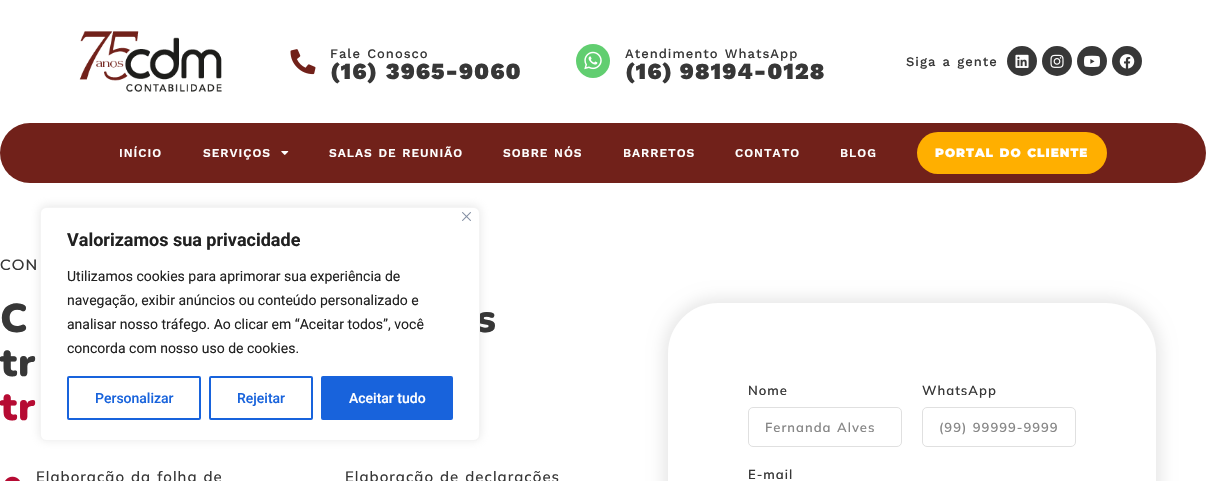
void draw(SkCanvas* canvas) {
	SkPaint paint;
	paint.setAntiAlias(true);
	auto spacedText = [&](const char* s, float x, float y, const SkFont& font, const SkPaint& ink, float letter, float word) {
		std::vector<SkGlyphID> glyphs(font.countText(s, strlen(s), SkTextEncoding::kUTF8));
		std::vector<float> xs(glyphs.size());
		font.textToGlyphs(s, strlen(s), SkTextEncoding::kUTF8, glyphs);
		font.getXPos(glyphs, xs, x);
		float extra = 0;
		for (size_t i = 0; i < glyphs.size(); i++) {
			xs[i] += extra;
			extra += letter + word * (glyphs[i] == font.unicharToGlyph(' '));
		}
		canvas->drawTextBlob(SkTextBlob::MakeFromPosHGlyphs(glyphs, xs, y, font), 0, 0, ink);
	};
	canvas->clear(0xffffffff);
	canvas->drawImageRect(SkImages::DeferredFromEncodedData(SkData::MakeFromFileName("img1.png")), SkRect::MakeXYWH(79, 31, 143, 61), SkSamplingOptions());
	canvas->drawImageRect(SkImages::DeferredFromEncodedData(SkData::MakeFromFileName("img2.png")), SkRect::MakeXYWH(290, 49, 26, 26), SkSamplingOptions());
	SkFont f1(fontMgr->matchFamilyStyle("Work Sans", SkFontStyle(500, SkFontStyle::kNormal_Width, SkFontStyle::kUpright_Slant)), 13);
	f1.setSubpixel(true);
	paint.setColor(0xff373737);
	spacedText("Fale Conosco", 330, 58, f1, paint, 1, 1);
	SkFont f2(fontMgr->matchFamilyStyle("Work Sans", SkFontStyle(900, SkFontStyle::kNormal_Width, SkFontStyle::kUpright_Slant)), 23);
	f2.setSubpixel(true);
	spacedText("(16) 3965-9060", 330, 79, f2, paint, 1, 1);
	paint.setColor(0xff61ce70);
	canvas->drawCircle(593, 61, 17, paint);
	canvas->drawImageRect(SkImages::DeferredFromEncodedData(SkData::MakeFromFileName("img3.png")), SkRect::MakeXYWH(584, 51, 18, 19), SkSamplingOptions());
	paint.setColor(0xff373737);
	spacedText("Atendimento WhatsApp", 625, 58, f1, paint, 1, 1);
	spacedText("(16) 98194-0128", 625, 79, f2, paint, 1, 0);
	spacedText("Siga a gente", 906, 66, f1, paint, 1, 1);
	canvas->drawCircle(1022, 61, 15, paint);
	canvas->drawImageRect(SkImages::DeferredFromEncodedData(SkData::MakeFromFileName("img4.png")), SkRect::MakeXYWH(1015, 54, 14, 14), SkSamplingOptions());
	canvas->drawCircle(1057, 61, 15, paint);
	canvas->drawImageRect(SkImages::DeferredFromEncodedData(SkData::MakeFromFileName("img5.png")), SkRect::MakeXYWH(1050, 54, 14, 14), SkSamplingOptions());
	canvas->drawCircle(1092, 61, 15, paint);
	canvas->drawImageRect(SkImages::DeferredFromEncodedData(SkData::MakeFromFileName("img6.png")), SkRect::MakeXYWH(1084, 55, 16, 12), SkSamplingOptions());
	canvas->drawCircle(1127, 61, 15, paint);
	canvas->drawImageRect(SkImages::DeferredFromEncodedData(SkData::MakeFromFileName("img7.png")), SkRect::MakeXYWH(1119, 54, 16, 15), SkSamplingOptions());
	paint.setColor(0xff71211a);
	canvas->drawRoundRect(SkRect::MakeXYWH(0, 123, 1206, 60), 30, 30, paint);
	SkFont f3(fontMgr->matchFamilyStyle("Work Sans", SkFontStyle(600, SkFontStyle::kNormal_Width, SkFontStyle::kUpright_Slant)), 12);
	f3.setSubpixel(true);
	paint.setColor(0xffffffff);
	spacedText("INÍCIO", 119, 157, f3, paint, 1, 0);
	spacedText("SERVIÇOS", 203, 157, f3, paint, 1, 0);
	canvas->drawImageRect(SkImages::DeferredFromEncodedData(SkData::MakeFromFileName("img8.png")), SkRect::MakeXYWH(281, 151, 8, 4), SkSamplingOptions());
	spacedText("SALAS DE REUNIÃO", 329, 157, f3, paint, 1, 1);
	spacedText("SOBRE NÓS", 503, 157, f3, paint, 1, 1);
	spacedText("BARRETOS", 623, 157, f3, paint, 1, 0);
	spacedText("CONTATO", 735, 157, f3, paint, 1, 0);
	spacedText("BLOG", 840, 157, f3, paint, 1, 0);
	paint.setColor(0xffffaf00);
	canvas->drawRoundRect(SkRect::MakeXYWH(917, 132, 190, 42), 21, 21, paint);
	SkFont f4(fontMgr->matchFamilyStyle("Montserrat", SkFontStyle(900, SkFontStyle::kNormal_Width, SkFontStyle::kUpright_Slant)), 12);
	f4.setSubpixel(true);
	paint.setColor(0xffffffff);
	spacedText("PORTAL DO CLIENTE", 935, 157, f4, paint, 1, 1);
	paint.setColor(0x4dacabab);
	paint.setMaskFilter(SkMaskFilter::MakeBlur(kNormal_SkBlurStyle, 5));
	canvas->drawRoundRect(SkRect::MakeXYWH(40, 206, 440, 234), 6, 6, paint);
	paint.setMaskFilter(nullptr);
	SkFont f5(fontMgr->matchFamilyStyle("Nunito", SkFontStyle(900, SkFontStyle::kNormal_Width, SkFontStyle::kUpright_Slant)), 40);
	f5.setSubpixel(true);
	paint.setColor(0xff373737);
	spacedText("s", 476, 332, f5, paint, 1, 1);
	paint.setColor(0xffffffff);
	canvas->drawRoundRect(SkRect::MakeXYWH(40.5, 207.5, 439, 233), 5.5, 5.5, paint);
	paint.setStroke(true);
	paint.setStrokeWidth(1);
	paint.setColor(0xfff4f4f4);
	canvas->drawRoundRect(SkRect::MakeXYWH(40.5, 207.5, 439, 233), 5.5, 5.5, paint);
	canvas->drawImageRect(SkImages::DeferredFromEncodedData(SkData::MakeFromFileName("img9.png")), SkRect::MakeXYWH(462, 212, 9, 9), SkSamplingOptions());
	SkFont f6(fontMgr->matchFamilyStyle("Roboto", SkFontStyle::Bold()), 18);
	f6.setSubpixel(true);
	paint.setStroke(false);
	paint.setColor(0xff212121);
	canvas->drawString("Valorizamos sua privacidade", 67, 246, f6, paint);
	SkFont f7(fontMgr->matchFamilyStyle("Roboto", SkFontStyle::Normal()), 14);
	f7.setSubpixel(true);
	canvas->drawString("Utilizamos cookies para aprimorar sua experiência de", 67, 281, f7, paint);
	canvas->drawString("navegação, exibir anúncios ou conteúdo personalizado e", 67, 305, f7, paint);
	canvas->drawString("analisar nosso tráfego. Ao clicar em “Aceitar todos”, você", 67, 329, f7, paint);
	canvas->drawString("concorda com nosso uso de cookies.", 67, 353, f7, paint);
	paint.setStroke(true);
	paint.setStrokeWidth(2);
	paint.setColor(0xff1863dc);
	canvas->drawRoundRect(SkRect::MakeXYWH(68, 377, 132, 42), 1, 1, paint);
	SkFont f8(fontMgr->matchFamilyStyle("Roboto", SkFontStyle(500, SkFontStyle::kNormal_Width, SkFontStyle::kUpright_Slant)), 14);
	f8.setSubpixel(true);
	paint.setStroke(false);
	canvas->drawString("Personalizar", 95, 403, f8, paint);
	paint.setStroke(true);
	canvas->drawRoundRect(SkRect::MakeXYWH(210, 377, 102, 42), 1, 1, paint);
	paint.setStroke(false);
	canvas->drawString("Rejeitar", 237, 403, f8, paint);
	canvas->drawRoundRect(SkRect::MakeXYWH(322, 377, 130, 42), 1, 1, paint);
	paint.setStroke(true);
	canvas->drawRoundRect(SkRect::MakeXYWH(322, 377, 130, 42), 1, 1, paint);
	paint.setStroke(false);
	paint.setColor(0xffffffff);
	canvas->drawString("Aceitar tudo", 349, 403, f8, paint);
	SkFont f9(fontMgr->matchFamilyStyle("Montserrat", SkFontStyle(500, SkFontStyle::kNormal_Width, SkFontStyle::kUpright_Slant)), 15);
	f9.setSubpixel(true);
	paint.setColor(0xff373737);
	spacedText("CON", 0, 270, f9, paint, 1, 1);
	spacedText("C", 0, 332, f5, paint, 1, 1);
	spacedText("tr", 0, 376, f5, paint, 1, 0);
	paint.setColor(0xffb60b33);
	spacedText("tr", 0, 420, f5, paint, 1, 0);
	canvas->drawImageRect(SkImages::DeferredFromEncodedData(SkData::MakeFromFileName("img10.png")), SkRect::MakeXYWH(5, 476, 15, 5), SkSamplingOptions());
	SkFont f10(fontMgr->matchFamilyStyle("Mulish", SkFontStyle(500, SkFontStyle::kNormal_Width, SkFontStyle::kUpright_Slant)), 15);
	f10.setSubpixel(true);
	paint.setColor(0xff373737);
	spacedText("Elaboração da folha de", 36, 482, f10, paint, 1, 1);
	spacedText("Elaboração de declarações", 345, 482, f10, paint, 1, 1);
	paint.setColor(0x17000000);
	paint.setMaskFilter(SkMaskFilter::MakeBlur(kNormal_SkBlurStyle, 7.5));
	canvas->drawRoundRect(SkRect::MakeXYWH(663, 298, 498, 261), 55, 55, paint);
	paint.setMaskFilter(nullptr);
	paint.setColor(0xffffffff);
	canvas->drawRoundRect(SkRect::MakeXYWH(668, 303, 488, 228), 50, 50, paint);
	SkFont f11(fontMgr->matchFamilyStyle("Mulish", SkFontStyle(600, SkFontStyle::kNormal_Width, SkFontStyle::kUpright_Slant)), 13);
	f11.setSubpixel(true);
	paint.setColor(0xff373737);
	spacedText("Nome", 748, 395, f11, paint, 1, 0);
	paint.setStroke(true);
	paint.setStrokeWidth(1);
	paint.setColor(0xffe0e0e0);
	canvas->drawRoundRect(SkRect::MakeXYWH(748.5, 407.5, 153, 39), 4.5, 4.5, paint);
	paint.setStroke(false);
	paint.setColor(0xff878787);
	spacedText("Fernanda Alves", 765, 432, f11, paint, 1, 1);
	paint.setColor(0xff373737);
	spacedText("WhatsApp", 922, 395, f11, paint, 1, 0);
	paint.setStroke(true);
	paint.setColor(0xffe0e0e0);
	canvas->drawRoundRect(SkRect::MakeXYWH(922.5, 407.5, 153, 39), 4.5, 4.5, paint);
	paint.setStroke(false);
	paint.setColor(0xff878787);
	spacedText("(99) 99999-9999", 939, 432, f11, paint, 1, 1);
	paint.setColor(0xff373737);
	spacedText("E-mail", 748, 479, f11, paint, 1, 0);
}
